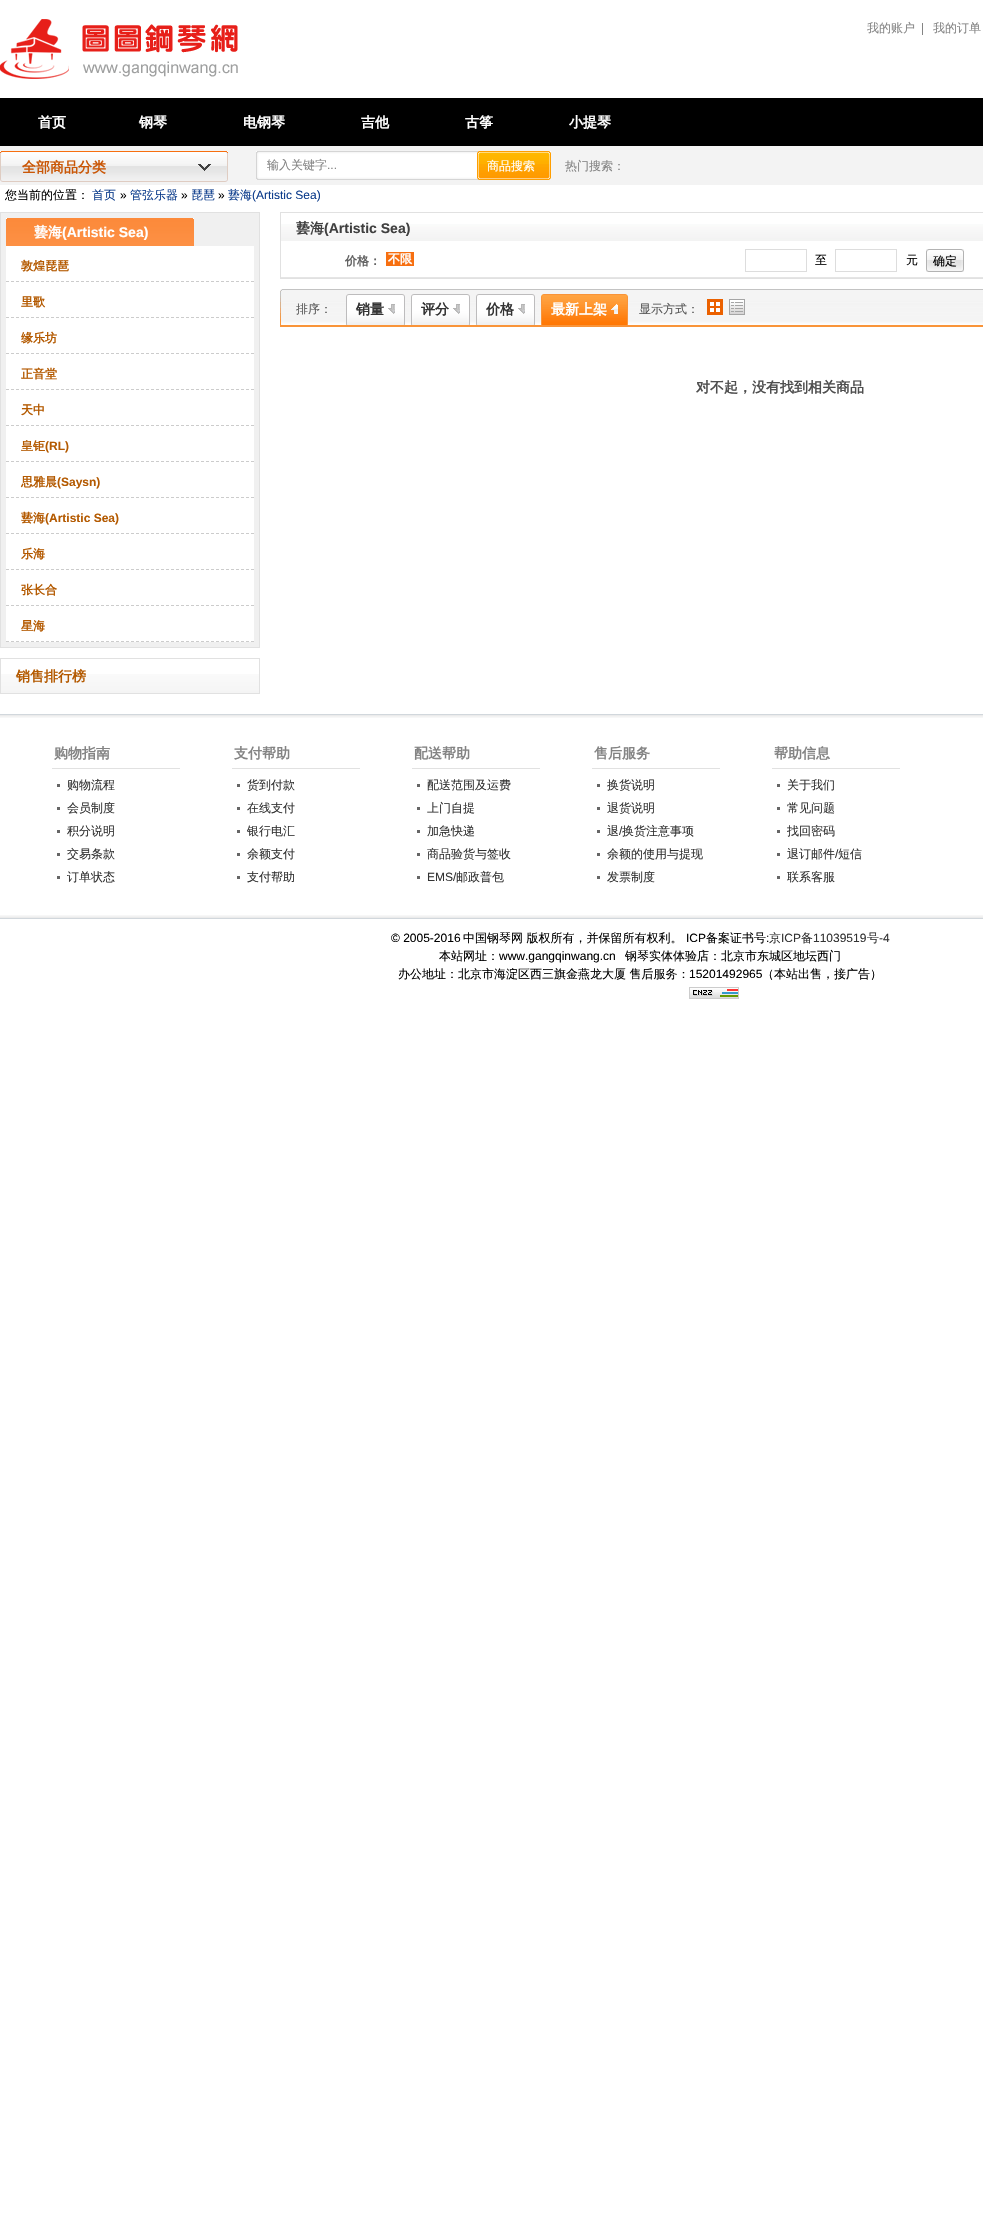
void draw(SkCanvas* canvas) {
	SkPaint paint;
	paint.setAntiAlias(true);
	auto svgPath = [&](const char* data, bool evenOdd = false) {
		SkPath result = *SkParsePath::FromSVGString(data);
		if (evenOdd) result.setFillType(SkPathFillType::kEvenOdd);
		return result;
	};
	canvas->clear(0xffffffff);
	canvas->drawImageRect(SkImages::DeferredFromEncodedData(SkData::MakeFromFileName("img1.png")), SkRect::MakeXYWH(0, 98, 983, 87), SkSamplingOptions());
	canvas->drawImageRect(SkImages::DeferredFromEncodedData(SkData::MakeFromFileName("img2.png")), SkRect::MakeXYWH(0, 19, 238, 60), SkSamplingOptions());
	SkFont f1(fontMgr->matchFamilyStyle("WenQuanYi Zen Hei", SkFontStyle(500, SkFontStyle::kNormal_Width, SkFontStyle::kUpright_Slant)), 12);
	f1.setSubpixel(true);
	paint.setColor(0xff848484);
	canvas->drawString("我的账户", 867, 32, f1, paint);
	canvas->drawRect(SkRect::MakeXYWH(922, 23, 1, 12), paint);
	canvas->drawString("我的订单", 933, 32, f1, paint);
	SkFont f2(fontMgr->matchFamilyStyle("WenQuanYi Zen Hei", SkFontStyle::Bold()), 14);
	f2.setSubpixel(true);
	paint.setColor(0xffffffff);
	canvas->drawString("首页", 38, 127, f2, paint);
	canvas->drawString("钢琴", 139, 127, f2, paint);
	canvas->drawString("电钢琴", 243, 127, f2, paint);
	canvas->drawString("吉他", 361, 127, f2, paint);
	canvas->drawString("古筝", 465, 127, f2, paint);
	canvas->drawString("小提琴", 569, 127, f2, paint);
	canvas->drawImageRect(SkImages::DeferredFromEncodedData(SkData::MakeFromFileName("img3.png")), SkRect::MakeXYWH(0, 151, 228, 31), SkSamplingOptions());
	paint.setColor(0xffca5707);
	canvas->drawString("全部商品分类", 22, 172, f2, paint);
	canvas->drawImageRect(SkImages::DeferredFromEncodedData(SkData::MakeFromFileName("img4.png")), SkRect::MakeXYWH(256, 151, 295, 29), SkSamplingOptions());
	paint.setColor(0xff848484);
	canvas->drawString("输入关键字", 267, 169, f1, paint);
	SkFont f3(fontMgr->matchFamilyStyle("Liberation Sans", SkFontStyle::Normal()), 12);
	f3.setSubpixel(true);
	canvas->drawString("...", 327, 169, f3, paint);
	paint.setColor(0xffffffff);
	canvas->drawString("商品搜索", 487, 170, f1, paint);
	paint.setColor(0xff848484);
	canvas->drawString("热门搜索：", 565, 170, f1, paint);
	paint.setColor(0xff000000);
	canvas->drawString("您当前的位置：", 5, 199, f1, paint);
	paint.setColor(0xff0b3b8b);
	canvas->drawString("首页", 92, 199, f1, paint);
	paint.setColor(0xff000000);
	canvas->drawString("»", 120, 199, f3, paint);
	paint.setColor(0xff0b3b8b);
	canvas->drawString("管弦乐器", 130, 199, f1, paint);
	paint.setColor(0xff000000);
	canvas->drawString("»", 181, 199, f3, paint);
	paint.setColor(0xff0b3b8b);
	canvas->drawString("琵琶", 191, 199, f1, paint);
	paint.setColor(0xff000000);
	canvas->drawString("»", 218, 199, f3, paint);
	paint.setColor(0xff0b3b8b);
	canvas->drawString("兿海", 228, 199, f1, paint);
	canvas->drawString("(Artistic Sea)", 252, 199, f3, paint);
	paint.setColor(0xfff0f0f0);
	canvas->drawRect(SkRect::MakeXYWH(0.5, 212.5, 259, 435), paint);
	paint.setStroke(true);
	paint.setStrokeWidth(1);
	paint.setColor(0xffe1e1e1);
	canvas->drawRect(SkRect::MakeXYWH(0.5, 212.5, 259, 435), paint);
	canvas->drawImageRect(SkImages::DeferredFromEncodedData(SkData::MakeFromFileName("img5.png")), SkRect::MakeXYWH(6, 218, 188, 28), SkSamplingOptions());
	paint.setStroke(false);
	paint.setColor(0xffffffff);
	canvas->drawString("兿海", 34, 237, f2, paint);
	SkFont f4(fontMgr->matchFamilyStyle("Liberation Sans", SkFontStyle::Bold()), 14);
	f4.setSubpixel(true);
	canvas->drawString("(Artistic Sea)", 62, 237, f4, paint);
	canvas->drawRect(SkRect::MakeXYWH(6, 246, 248, 396), paint);
	paint.setStroke(true);
	paint.setColor(0xffcccccc);
	paint.setPathEffect(SkDashPathEffect::Make({{3, 2}}, 0));
	canvas->drawPath(svgPath("M6 281.5H254"), paint);
	paint.setPathEffect(nullptr);
	SkFont f5(fontMgr->matchFamilyStyle("WenQuanYi Zen Hei", SkFontStyle::Bold()), 12);
	f5.setSubpixel(true);
	paint.setStroke(false);
	paint.setColor(0xffb45a01);
	canvas->drawString("敦煌琵琶", 21, 270, f5, paint);
	paint.setStroke(true);
	paint.setColor(0xffcccccc);
	paint.setPathEffect(SkDashPathEffect::Make({{3, 2}}, 0));
	canvas->drawPath(svgPath("M6 317.5H254"), paint);
	paint.setPathEffect(nullptr);
	paint.setStroke(false);
	paint.setColor(0xffb45a01);
	canvas->drawString("里歌", 21, 306, f5, paint);
	paint.setStroke(true);
	paint.setColor(0xffcccccc);
	paint.setPathEffect(SkDashPathEffect::Make({{3, 2}}, 0));
	canvas->drawPath(svgPath("M6 353.5H254"), paint);
	paint.setPathEffect(nullptr);
	paint.setStroke(false);
	paint.setColor(0xffb45a01);
	canvas->drawString("缘乐坊", 21, 342, f5, paint);
	paint.setStroke(true);
	paint.setColor(0xffcccccc);
	paint.setPathEffect(SkDashPathEffect::Make({{3, 2}}, 0));
	canvas->drawPath(svgPath("M6 389.5H254"), paint);
	paint.setPathEffect(nullptr);
	paint.setStroke(false);
	paint.setColor(0xffb45a01);
	canvas->drawString("正音堂", 21, 378, f5, paint);
	paint.setStroke(true);
	paint.setColor(0xffcccccc);
	paint.setPathEffect(SkDashPathEffect::Make({{3, 2}}, 0));
	canvas->drawPath(svgPath("M6 425.5H254"), paint);
	paint.setPathEffect(nullptr);
	paint.setStroke(false);
	paint.setColor(0xffb45a01);
	canvas->drawString("天中", 21, 414, f5, paint);
	paint.setStroke(true);
	paint.setColor(0xffcccccc);
	paint.setPathEffect(SkDashPathEffect::Make({{3, 2}}, 0));
	canvas->drawPath(svgPath("M6 461.5H254"), paint);
	paint.setPathEffect(nullptr);
	paint.setStroke(false);
	paint.setColor(0xffb45a01);
	canvas->drawString("皇钜", 21, 450, f5, paint);
	SkFont f6(fontMgr->matchFamilyStyle("Liberation Sans", SkFontStyle::Bold()), 12);
	f6.setSubpixel(true);
	canvas->drawString("(RL)", 45, 450, f6, paint);
	paint.setStroke(true);
	paint.setColor(0xffcccccc);
	paint.setPathEffect(SkDashPathEffect::Make({{3, 2}}, 0));
	canvas->drawPath(svgPath("M6 497.5H254"), paint);
	paint.setPathEffect(nullptr);
	paint.setStroke(false);
	paint.setColor(0xffb45a01);
	canvas->drawString("思雅晨", 21, 486, f5, paint);
	canvas->drawString("(Saysn)", 57, 486, f6, paint);
	paint.setStroke(true);
	paint.setColor(0xffcccccc);
	paint.setPathEffect(SkDashPathEffect::Make({{3, 2}}, 0));
	canvas->drawPath(svgPath("M6 533.5H254"), paint);
	paint.setPathEffect(nullptr);
	paint.setStroke(false);
	paint.setColor(0xffb45a01);
	canvas->drawString("兿海", 21, 522, f5, paint);
	canvas->drawString("(Artistic Sea)", 45, 522, f6, paint);
	paint.setStroke(true);
	paint.setColor(0xffcccccc);
	paint.setPathEffect(SkDashPathEffect::Make({{3, 2}}, 0));
	canvas->drawPath(svgPath("M6 569.5H254"), paint);
	paint.setPathEffect(nullptr);
	paint.setStroke(false);
	paint.setColor(0xffb45a01);
	canvas->drawString("乐海", 21, 558, f5, paint);
	paint.setStroke(true);
	paint.setColor(0xffcccccc);
	paint.setPathEffect(SkDashPathEffect::Make({{3, 2}}, 0));
	canvas->drawPath(svgPath("M6 605.5H254"), paint);
	paint.setPathEffect(nullptr);
	paint.setStroke(false);
	paint.setColor(0xffb45a01);
	canvas->drawString("张长合", 21, 594, f5, paint);
	paint.setStroke(true);
	paint.setColor(0xffcccccc);
	paint.setPathEffect(SkDashPathEffect::Make({{3, 2}}, 0));
	canvas->drawPath(svgPath("M6 641.5H254"), paint);
	paint.setPathEffect(nullptr);
	paint.setStroke(false);
	paint.setColor(0xffb45a01);
	canvas->drawString("星海", 21, 630, f5, paint);
	paint.setStroke(true);
	paint.setColor(0xffe1e1e1);
	canvas->drawRect(SkRect::MakeXYWH(0.5, 658.5, 259, 35), paint);
	canvas->drawImageRect(SkImages::DeferredFromEncodedData(SkData::MakeFromFileName("img6.png")), SkRect::MakeXYWH(1, 674, 258, 19), SkSamplingOptions());
	paint.setStroke(false);
	paint.setColor(0xffb45a01);
	canvas->drawString("销售排行榜", 16, 681, f2, paint);
	paint.setStroke(true);
	paint.setColor(0xffe1e1e1);
	canvas->drawRect(SkRect::MakeXYWH(280.5, 212.5, 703, 66), paint);
	canvas->drawImageRect(SkImages::DeferredFromEncodedData(SkData::MakeFromFileName("img7.png")), SkRect::MakeXYWH(281, 224, 702, 17), SkSamplingOptions());
	paint.setStroke(false);
	paint.setColor(0xff404040);
	canvas->drawString("兿海", 296, 233, f2, paint);
	canvas->drawString("(Artistic Sea)", 324, 233, f4, paint);
	paint.setColor(0xffe5e5e5);
	canvas->drawRect(SkRect::MakeXYWH(281, 277, 702, 1), paint);
	paint.setColor(0xff626262);
	canvas->drawString("价格：", 345, 265, f5, paint);
	paint.setColor(0xfff76f10);
	canvas->drawRect(SkRect::MakeXYWH(386, 252, 28, 14), paint);
	paint.setColor(0xffffffff);
	canvas->drawString("不限", 388, 263, f5, paint);
	paint.setStroke(true);
	paint.setColor(0xffdddddd);
	canvas->drawRect(SkRect::MakeXYWH(745.5, 249.5, 61, 22), paint);
	paint.setStroke(false);
	paint.setColor(0xff000000);
	canvas->drawString("至", 815, 264, f1, paint);
	paint.setStroke(true);
	paint.setColor(0xffdddddd);
	canvas->drawRect(SkRect::MakeXYWH(835.5, 249.5, 61, 22), paint);
	paint.setStroke(false);
	paint.setColor(0xff000000);
	canvas->drawString("元", 906, 264, f1, paint);
	canvas->drawImageRect(SkImages::DeferredFromEncodedData(SkData::MakeFromFileName("img8.png")), SkRect::MakeXYWH(926, 249, 35, 23), SkSamplingOptions());
	canvas->drawImageRect(SkImages::DeferredFromEncodedData(SkData::MakeFromFileName("img9.png")), SkRect::MakeXYWH(961, 249, 3, 23), SkSamplingOptions());
	canvas->drawString("确定", 933, 265, f1, paint);
	canvas->drawImageRect(SkImages::DeferredFromEncodedData(SkData::MakeFromFileName("img10.png")), SkRect::MakeXYWH(280, 289, 703, 38), SkSamplingOptions());
	canvas->drawImageRect(SkImages::DeferredFromEncodedData(SkData::MakeFromFileName("img11.png")), SkRect::MakeXYWH(280, 289, 2, 36), SkSamplingOptions());
	paint.setColor(0xff555555);
	canvas->drawString("排序：", 296, 313, f1, paint);
	canvas->drawImageRect(SkImages::DeferredFromEncodedData(SkData::MakeFromFileName("img12.png")), SkRect::MakeXYWH(349, 294, 53, 31), SkSamplingOptions());
	canvas->drawImageRect(SkImages::DeferredFromEncodedData(SkData::MakeFromFileName("img13.png")), SkRect::MakeXYWH(346, 294, 3, 31), SkSamplingOptions());
	paint.setColor(0xff333333);
	canvas->drawString("销量", 356, 314, f2, paint);
	canvas->drawImageRect(SkImages::DeferredFromEncodedData(SkData::MakeFromFileName("img14.png")), SkRect::MakeXYWH(388, 304, 7, 10), SkSamplingOptions());
	canvas->drawImageRect(SkImages::DeferredFromEncodedData(SkData::MakeFromFileName("img15.png")), SkRect::MakeXYWH(402, 294, 3, 31), SkSamplingOptions());
	canvas->drawImageRect(SkImages::DeferredFromEncodedData(SkData::MakeFromFileName("img12.png")), SkRect::MakeXYWH(414, 294, 53, 31), SkSamplingOptions());
	canvas->drawImageRect(SkImages::DeferredFromEncodedData(SkData::MakeFromFileName("img13.png")), SkRect::MakeXYWH(411, 294, 3, 31), SkSamplingOptions());
	canvas->drawString("评分", 421, 314, f2, paint);
	canvas->drawImageRect(SkImages::DeferredFromEncodedData(SkData::MakeFromFileName("img14.png")), SkRect::MakeXYWH(453, 304, 7, 10), SkSamplingOptions());
	canvas->drawImageRect(SkImages::DeferredFromEncodedData(SkData::MakeFromFileName("img15.png")), SkRect::MakeXYWH(467, 294, 3, 31), SkSamplingOptions());
	canvas->drawImageRect(SkImages::DeferredFromEncodedData(SkData::MakeFromFileName("img12.png")), SkRect::MakeXYWH(479, 294, 53, 31), SkSamplingOptions());
	canvas->drawImageRect(SkImages::DeferredFromEncodedData(SkData::MakeFromFileName("img13.png")), SkRect::MakeXYWH(476, 294, 3, 31), SkSamplingOptions());
	canvas->drawString("价格", 486, 314, f2, paint);
	canvas->drawImageRect(SkImages::DeferredFromEncodedData(SkData::MakeFromFileName("img14.png")), SkRect::MakeXYWH(518, 304, 7, 10), SkSamplingOptions());
	canvas->drawImageRect(SkImages::DeferredFromEncodedData(SkData::MakeFromFileName("img15.png")), SkRect::MakeXYWH(532, 294, 3, 31), SkSamplingOptions());
	canvas->drawImageRect(SkImages::DeferredFromEncodedData(SkData::MakeFromFileName("img16.png")), SkRect::MakeXYWH(544, 294, 81, 31), SkSamplingOptions());
	canvas->drawImageRect(SkImages::DeferredFromEncodedData(SkData::MakeFromFileName("img17.png")), SkRect::MakeXYWH(541, 294, 3, 31), SkSamplingOptions());
	paint.setColor(0xffffffff);
	canvas->drawString("最新上架", 551, 314, f2, paint);
	canvas->drawImageRect(SkImages::DeferredFromEncodedData(SkData::MakeFromFileName("img18.png")), SkRect::MakeXYWH(611, 304, 7, 10), SkSamplingOptions());
	canvas->drawImageRect(SkImages::DeferredFromEncodedData(SkData::MakeFromFileName("img19.png")), SkRect::MakeXYWH(625, 294, 3, 31), SkSamplingOptions());
	paint.setColor(0xff555555);
	canvas->drawString("显示方式：", 639, 313, f1, paint);
	canvas->drawImageRect(SkImages::DeferredFromEncodedData(SkData::MakeFromFileName("img20.png")), SkRect::MakeXYWH(707, 299, 16, 16), SkSamplingOptions());
	canvas->drawImageRect(SkImages::DeferredFromEncodedData(SkData::MakeFromFileName("img21.png")), SkRect::MakeXYWH(729, 299, 16, 16), SkSamplingOptions());
	paint.setColor(0xff4f4f4f);
	canvas->drawString("对不起，没有找到相关商品", 696, 392, f2, paint);
	canvas->drawImageRect(SkImages::DeferredFromEncodedData(SkData::MakeFromFileName("img22.png")), SkRect::MakeXYWH(0, 714, 983, 4), SkSamplingOptions());
	canvas->drawImageRect(SkImages::DeferredFromEncodedData(SkData::MakeFromFileName("img23.png")), SkRect::MakeXYWH(0, 915, 983, 4), SkSamplingOptions());
	paint.setColor(0xffe1e1e1);
	canvas->drawRect(SkRect::MakeXYWH(52, 768, 128, 1), paint);
	paint.setColor(0xff848484);
	canvas->drawString("购物指南", 54, 758, f2, paint);
	paint.setColor(0xff666666);
	canvas->drawRect(SkRect::MakeXYWH(57, 784, 3, 3), paint);
	paint.setColor(0xff333333);
	canvas->drawString("购物流程", 67, 789, f1, paint);
	paint.setColor(0xff666666);
	canvas->drawRect(SkRect::MakeXYWH(57, 807, 3, 3), paint);
	paint.setColor(0xff333333);
	canvas->drawString("会员制度", 67, 812, f1, paint);
	paint.setColor(0xff666666);
	canvas->drawRect(SkRect::MakeXYWH(57, 830, 3, 3), paint);
	paint.setColor(0xff333333);
	canvas->drawString("积分说明", 67, 835, f1, paint);
	paint.setColor(0xff666666);
	canvas->drawRect(SkRect::MakeXYWH(57, 853, 3, 3), paint);
	paint.setColor(0xff333333);
	canvas->drawString("交易条款", 67, 858, f1, paint);
	paint.setColor(0xff666666);
	canvas->drawRect(SkRect::MakeXYWH(57, 876, 3, 3), paint);
	paint.setColor(0xff333333);
	canvas->drawString("订单状态", 67, 881, f1, paint);
	paint.setColor(0xffe1e1e1);
	canvas->drawRect(SkRect::MakeXYWH(232, 768, 128, 1), paint);
	paint.setColor(0xff848484);
	canvas->drawString("支付帮助", 234, 758, f2, paint);
	paint.setColor(0xff666666);
	canvas->drawRect(SkRect::MakeXYWH(237, 784, 3, 3), paint);
	paint.setColor(0xff333333);
	canvas->drawString("货到付款", 247, 789, f1, paint);
	paint.setColor(0xff666666);
	canvas->drawRect(SkRect::MakeXYWH(237, 807, 3, 3), paint);
	paint.setColor(0xff333333);
	canvas->drawString("在线支付", 247, 812, f1, paint);
	paint.setColor(0xff666666);
	canvas->drawRect(SkRect::MakeXYWH(237, 830, 3, 3), paint);
	paint.setColor(0xff333333);
	canvas->drawString("银行电汇", 247, 835, f1, paint);
	paint.setColor(0xff666666);
	canvas->drawRect(SkRect::MakeXYWH(237, 853, 3, 3), paint);
	paint.setColor(0xff333333);
	canvas->drawString("余额支付", 247, 858, f1, paint);
	paint.setColor(0xff666666);
	canvas->drawRect(SkRect::MakeXYWH(237, 876, 3, 3), paint);
	paint.setColor(0xff333333);
	canvas->drawString("支付帮助", 247, 881, f1, paint);
	paint.setColor(0xffe1e1e1);
	canvas->drawRect(SkRect::MakeXYWH(412, 768, 128, 1), paint);
	paint.setColor(0xff848484);
	canvas->drawString("配送帮助", 414, 758, f2, paint);
	paint.setColor(0xff666666);
	canvas->drawRect(SkRect::MakeXYWH(417, 784, 3, 3), paint);
	paint.setColor(0xff333333);
	canvas->drawString("配送范围及运费", 427, 789, f1, paint);
	paint.setColor(0xff666666);
	canvas->drawRect(SkRect::MakeXYWH(417, 807, 3, 3), paint);
	paint.setColor(0xff333333);
	canvas->drawString("上门自提", 427, 812, f1, paint);
	paint.setColor(0xff666666);
	canvas->drawRect(SkRect::MakeXYWH(417, 830, 3, 3), paint);
	paint.setColor(0xff333333);
	canvas->drawString("加急快递", 427, 835, f1, paint);
	paint.setColor(0xff666666);
	canvas->drawRect(SkRect::MakeXYWH(417, 853, 3, 3), paint);
	paint.setColor(0xff333333);
	canvas->drawString("商品验货与签收", 427, 858, f1, paint);
	paint.setColor(0xff666666);
	canvas->drawRect(SkRect::MakeXYWH(417, 876, 3, 3), paint);
	paint.setColor(0xff333333);
	canvas->drawString("EMS/", 427, 881, f3, paint);
	canvas->drawString("邮政普包", 456, 881, f1, paint);
	paint.setColor(0xffe1e1e1);
	canvas->drawRect(SkRect::MakeXYWH(592, 768, 128, 1), paint);
	paint.setColor(0xff848484);
	canvas->drawString("售后服务", 594, 758, f2, paint);
	paint.setColor(0xff666666);
	canvas->drawRect(SkRect::MakeXYWH(597, 784, 3, 3), paint);
	paint.setColor(0xff333333);
	canvas->drawString("换货说明", 607, 789, f1, paint);
	paint.setColor(0xff666666);
	canvas->drawRect(SkRect::MakeXYWH(597, 807, 3, 3), paint);
	paint.setColor(0xff333333);
	canvas->drawString("退货说明", 607, 812, f1, paint);
	paint.setColor(0xff666666);
	canvas->drawRect(SkRect::MakeXYWH(597, 830, 3, 3), paint);
	paint.setColor(0xff333333);
	canvas->drawString("退", 607, 835, f1, paint);
	canvas->drawString("/", 619, 835, f3, paint);
	canvas->drawString("换货注意事项", 622, 835, f1, paint);
	paint.setColor(0xff666666);
	canvas->drawRect(SkRect::MakeXYWH(597, 853, 3, 3), paint);
	paint.setColor(0xff333333);
	canvas->drawString("余额的使用与提现", 607, 858, f1, paint);
	paint.setColor(0xff666666);
	canvas->drawRect(SkRect::MakeXYWH(597, 876, 3, 3), paint);
	paint.setColor(0xff333333);
	canvas->drawString("发票制度", 607, 881, f1, paint);
	paint.setColor(0xffe1e1e1);
	canvas->drawRect(SkRect::MakeXYWH(772, 768, 128, 1), paint);
	paint.setColor(0xff848484);
	canvas->drawString("帮助信息", 774, 758, f2, paint);
	paint.setColor(0xff666666);
	canvas->drawRect(SkRect::MakeXYWH(777, 784, 3, 3), paint);
	paint.setColor(0xff333333);
	canvas->drawString("关于我们", 787, 789, f1, paint);
	paint.setColor(0xff666666);
	canvas->drawRect(SkRect::MakeXYWH(777, 807, 3, 3), paint);
	paint.setColor(0xff333333);
	canvas->drawString("常见问题", 787, 812, f1, paint);
	paint.setColor(0xff666666);
	canvas->drawRect(SkRect::MakeXYWH(777, 830, 3, 3), paint);
	paint.setColor(0xff333333);
	canvas->drawString("找回密码", 787, 835, f1, paint);
	paint.setColor(0xff666666);
	canvas->drawRect(SkRect::MakeXYWH(777, 853, 3, 3), paint);
	paint.setColor(0xff333333);
	canvas->drawString("退订邮件", 787, 858, f1, paint);
	canvas->drawString("/", 835, 858, f3, paint);
	canvas->drawString("短信", 838, 858, f1, paint);
	paint.setColor(0xff666666);
	canvas->drawRect(SkRect::MakeXYWH(777, 876, 3, 3), paint);
	paint.setColor(0xff333333);
	canvas->drawString("联系客服", 787, 881, f1, paint);
	paint.setColor(0xff000000);
	canvas->drawString("© 2005-2016", 391, 942, f3, paint);
	canvas->drawString("中国钢琴网 版权所有，并保留所有权利。", 463, 942, f1, paint);
	canvas->drawString("ICP", 686, 942, f3, paint);
	canvas->drawString("备案证书号", 706, 942, f1, paint);
	canvas->drawString(":", 766, 942, f3, paint);
	paint.setColor(0xff333333);
	canvas->drawString("京", 769, 942, f1, paint);
	canvas->drawString("ICP", 781, 942, f3, paint);
	canvas->drawString("备", 801, 942, f1, paint);
	canvas->drawString("11039519", 813, 942, f3, paint);
	canvas->drawString("号", 867, 942, f1, paint);
	canvas->drawString("-4", 879, 942, f3, paint);
	paint.setColor(0xff000000);
	canvas->drawString("本站网址：", 439, 960, f1, paint);
	canvas->drawString("www.gangqinwang.cn", 499, 960, f3, paint);
	canvas->drawString("钢琴实体体验店：北京市东城区地坛西门", 625, 960, f1, paint);
	canvas->drawString("办公地址：北京市海淀区西三旗金燕龙大厦 售后服务：", 398, 978, f1, paint);
	canvas->drawString("15201492965", 689, 978, f3, paint);
	canvas->drawString("（本站出售，接广告）", 762, 978, f1, paint);
	canvas->drawImageRect(SkImages::DeferredFromEncodedData(SkData::MakeFromFileName("img24.png")), SkRect::MakeXYWH(689, 987, 50, 12), SkSamplingOptions());
}
